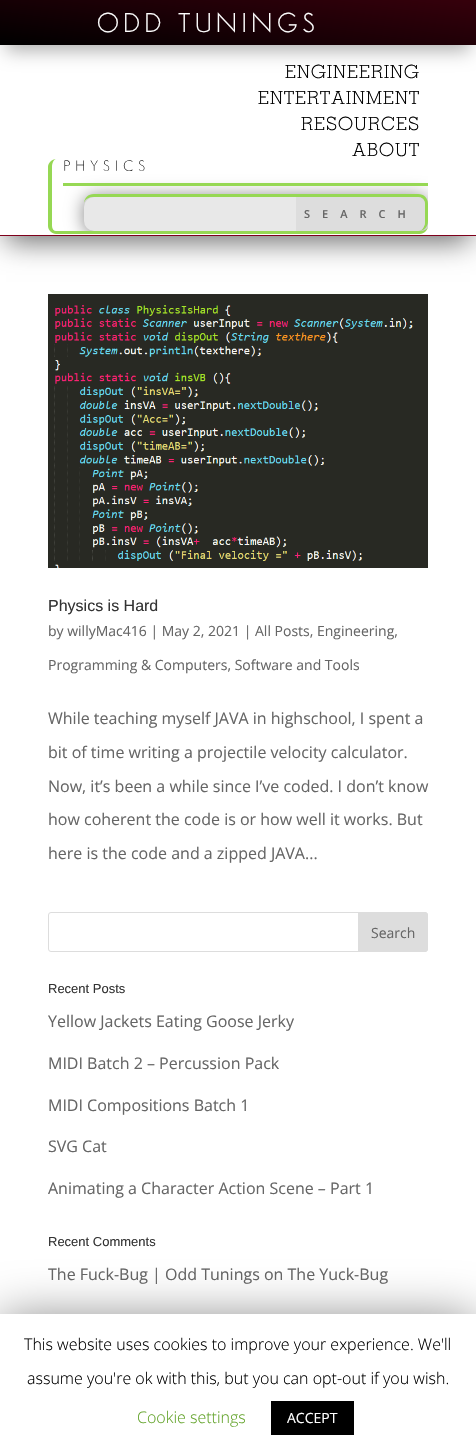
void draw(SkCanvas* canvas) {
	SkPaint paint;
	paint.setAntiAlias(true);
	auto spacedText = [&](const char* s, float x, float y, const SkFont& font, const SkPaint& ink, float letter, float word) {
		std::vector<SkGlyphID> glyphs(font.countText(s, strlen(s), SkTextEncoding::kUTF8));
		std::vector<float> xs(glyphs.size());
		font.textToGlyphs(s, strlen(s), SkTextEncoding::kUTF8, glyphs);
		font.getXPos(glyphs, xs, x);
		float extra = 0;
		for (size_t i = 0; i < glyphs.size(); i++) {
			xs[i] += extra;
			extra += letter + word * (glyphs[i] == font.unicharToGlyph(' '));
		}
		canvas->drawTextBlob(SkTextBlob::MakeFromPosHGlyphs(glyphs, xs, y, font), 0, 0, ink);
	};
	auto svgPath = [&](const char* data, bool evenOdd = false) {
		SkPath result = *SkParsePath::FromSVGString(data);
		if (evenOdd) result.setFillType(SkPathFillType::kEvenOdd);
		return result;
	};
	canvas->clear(0xffffffff);
	paint.setColor(0x91000000);
	paint.setMaskFilter(SkMaskFilter::MakeBlur(kNormal_SkBlurStyle, 13.5));
	canvas->drawRect(SkRect::MakeXYWH(6, 63, 464, 179), paint);
	paint.setMaskFilter(nullptr);
	paint.setColor(0xffffffff);
	canvas->drawRect(SkRect::MakeXYWH(0, 45, 476, 190), paint);
	paint.setColor(0x4d000000);
	paint.setMaskFilter(SkMaskFilter::MakeBlur(kNormal_SkBlurStyle, 9));
	canvas->drawRect(SkRect::MakeXYWH(6, -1, 464, 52), paint);
	paint.setMaskFilter(nullptr);
	{
		const SkColor colors[] = {0xff7f001b, 0xff000000};
		const float stops[] = {0, 1};
		const SkPoint ends[] = {{265, -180}, {229, 77}};
		paint.setShader(SkGradientShader::MakeLinear(ends, colors, stops, 2, SkTileMode::kClamp));
		paint.setAlpha(255);
	}
	canvas->drawRect(SkRect::MakeXYWH(0, 0, 476, 45), paint);
	SkFont f1(fontMgr->matchFamilyStyle("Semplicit", SkFontStyle(300, SkFontStyle::kNormal_Width, SkFontStyle::kUpright_Slant)), 27);
	f1.setSubpixel(true);
	paint.setShader(nullptr);
	paint.setColor(0xffffffff);
	spacedText("ODD TUNINGS", 97, 32, f1, paint, 5, 0);
	paint.setColor(0xff7f001b);
	canvas->drawRect(SkRect::MakeXYWH(0, 235, 476, 1), paint);
	SkFont f2(fontMgr->matchFamilyStyle("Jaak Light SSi", SkFontStyle(300, SkFontStyle::kNormal_Width, SkFontStyle::kUpright_Slant)), 18);
	f2.setSubpixel(true);
	paint.setColor(0xff000000);
	spacedText("ENGINEERING", 285, 78, f2, paint, 1, 0);
	spacedText("ENTERTAINMENT", 258, 104, f2, paint, 1, 0);
	spacedText("RESOURCES", 301, 130, f2, paint, 1, 0);
	spacedText("ABOUT", 352, 156, f2, paint, 1, 0);
	paint.setColor(0xff96d854);
	canvas->drawPath(svgPath("M56 159H420C424 159 428 163 428 167V226C428 230 424 234 420 234H56C52 234 48 230 48 226V167C48 163 52 159 56 159ZM56 159H420C424 159 428 163 428 167V226C428 229 424 231 420 231H56C54 231 52 229 52 226V167C52 163 54 159 56 159Z", true), paint);
	SkFont f3(fontMgr->matchFamilyStyle("Futura", SkFontStyle(100, SkFontStyle::kNormal_Width, SkFontStyle::kUpright_Slant)), 15);
	f3.setSubpixel(true);
	paint.setColor(0xff000000);
	spacedText("PHYSICS", 63, 171, f3, paint, 5, 0);
	canvas->save();
	canvas->clipPath(svgPath("M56 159H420C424.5 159 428 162.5 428 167V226C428 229 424.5 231 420 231H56C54 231 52 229 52 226V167C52 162.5 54 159 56 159Z"), true);
	paint.setColor(0x7d000000);
	paint.setMaskFilter(SkMaskFilter::MakeBlur(kNormal_SkBlurStyle, 9));
	canvas->drawRoundRect(SkRect::MakeXYWH(84, 196, 344, 37), 10, 10, paint);
	paint.setMaskFilter(nullptr);
	canvas->restore();
	paint.setColor(0xff96d854);
	canvas->drawRect(SkRect::MakeXYWH(63, 183, 365, 3), paint);
	canvas->drawPath(svgPath("M94 194H418C424 194 428 198 428 204V221C428 227 424 231 418 231H94C88 231 84 227 84 221V204C84 198 88 194 94 194ZM94 197H418C422 197 425 200 425 204V221C425 227 422 231 418 231H94C88 231 84 227 84 221V204C84 200 88 197 94 197Z", true), paint);
	paint.setColor(0xffe8e8e8);
	canvas->drawRoundRect(SkRect::MakeXYWH(84, 197, 341, 34), 10, 10, paint);
	paint.setColor(0xffdddddd);
	canvas->drawPath(svgPath("M296 197V231H418C422 231 425 227 425 221V204C425 200 422 197 418 197Z"), paint);
	SkFont f4(fontMgr->matchFamilyStyle("Open Sans", SkFontStyle(600, SkFontStyle::kNormal_Width, SkFontStyle::kUpright_Slant)), 11);
	f4.setSubpixel(true);
	paint.setColor(0xff666666);
	spacedText("SEARCH", 304, 218, f4, paint, 12, 0);
	canvas->drawImageRect(SkImages::DeferredFromEncodedData(SkData::MakeFromFileName("img1.png")), SkRect::MakeXYWH(48, 294, 380, 274), SkSamplingOptions());
	SkFont f5(fontMgr->matchFamilyStyle("Liberation Sans", SkFontStyle::Normal()), 16);
	f5.setSubpixel(true);
	paint.setColor(0xff333333);
	canvas->drawString("Physics is Hard", 48, 611, f5, paint);
	SkFont f6(fontMgr->matchFamilyStyle("Open Sans", SkFontStyle::Normal()), 14);
	f6.setSubpixel(true);
	paint.setColor(0xff666666);
	canvas->drawString("by willyMac416 | May 2, 2021 | All Posts, Engineering,", 48, 636, f6, paint);
	canvas->drawString("Programming & Computers, Software and Tools", 48, 670, f6, paint);
	SkFont f7(fontMgr->matchFamilyStyle("Open Sans", SkFontStyle::Normal()), 16);
	f7.setSubpixel(true);
	canvas->drawString("While teaching myself JAVA in highschool, I spent a", 48, 724, f7, paint);
	canvas->drawString("bit of time writing a projectile velocity calculator.", 48, 758, f7, paint);
	canvas->drawString("Now, it’s been a while since I’ve coded. I don’t know", 48, 792, f7, paint);
	canvas->drawString("how coherent the code is or how well it works. But", 48, 825, f7, paint);
	canvas->drawString("here is the code and a zipped JAVA...", 48, 859, f7, paint);
	paint.setStroke(true);
	paint.setStrokeWidth(1);
	paint.setColor(0xffdddddd);
	canvas->drawRoundRect(SkRect::MakeXYWH(48.5, 912.5, 379, 39), 2.5, 2.5, paint);
	paint.setStroke(false);
	canvas->drawPath(svgPath("M358.5 912.5H425C426.5 912.5 427.5 913.5 427.5 915V949C427.5 950.5 426.5 951.5 425 951.5H358.5Z"), paint);
	paint.setStroke(true);
	canvas->drawPath(svgPath("M358.5 912.5H425C426.5 912.5 427.5 913.5 427.5 915V949C427.5 950.5 426.5 951.5 425 951.5H358.5Z"), paint);
	paint.setStroke(false);
	paint.setColor(0xff666666);
	canvas->drawString("Search", 371, 938, f6, paint);
	SkFont f8(fontMgr->matchFamilyStyle("Liberation Sans", SkFontStyle::Normal()), 13);
	f8.setSubpixel(true);
	paint.setColor(0xff333333);
	canvas->drawString("Recent Posts", 48, 993, f8, paint);
	paint.setColor(0xff666666);
	canvas->drawString("Yellow Jackets Eating Goose Jerky", 48, 1027, f7, paint);
	canvas->drawString("MIDI Batch 2 – Percussion Pack", 48, 1069, f7, paint);
	canvas->drawString("MIDI Compositions Batch 1", 48, 1111, f7, paint);
	canvas->drawString("SVG Cat", 48, 1152, f7, paint);
	canvas->drawString("Animating a Character Action Scene – Part 1", 48, 1194, f7, paint);
	paint.setColor(0xff333333);
	canvas->drawString("Recent Comments", 48, 1246, f8, paint);
	paint.setColor(0xff666666);
	canvas->drawString("The Fuck-Bug | Odd Tunings on The Yuck-Bug", 48, 1280, f7, paint);
	paint.setColor(0x80000000);
	paint.setMaskFilter(SkMaskFilter::MakeBlur(kNormal_SkBlurStyle, 25));
	canvas->drawRect(SkRect::MakeXYWH(0, 1319, 476, 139), paint);
	paint.setMaskFilter(nullptr);
	paint.setColor(0xffffffff);
	canvas->drawRect(SkRect::MakeXYWH(0, 1314, 476, 139), paint);
	SkFont f9(fontMgr->matchFamilyStyle("Open Sans", SkFontStyle(300, SkFontStyle::kNormal_Width, SkFontStyle::kUpright_Slant)), 16);
	f9.setSubpixel(true);
	paint.setColor(0xff000000);
	canvas->drawString("This website uses cookies to improve your experience. We'll", 24, 1350, f9, paint);
	canvas->drawString("assume you're ok with this, but you can opt-out if you wish.", 27, 1384, f9, paint);
	paint.setColor(0xff62a329);
	canvas->drawString("Cookie settings", 137, 1423, f9, paint);
	paint.setColor(0xff000000);
	canvas->drawRect(SkRect::MakeXYWH(271, 1401, 83, 34), paint);
	paint.setColor(0xffffffff);
	canvas->drawString("ACCEPT", 287, 1423, f6, paint);
}
